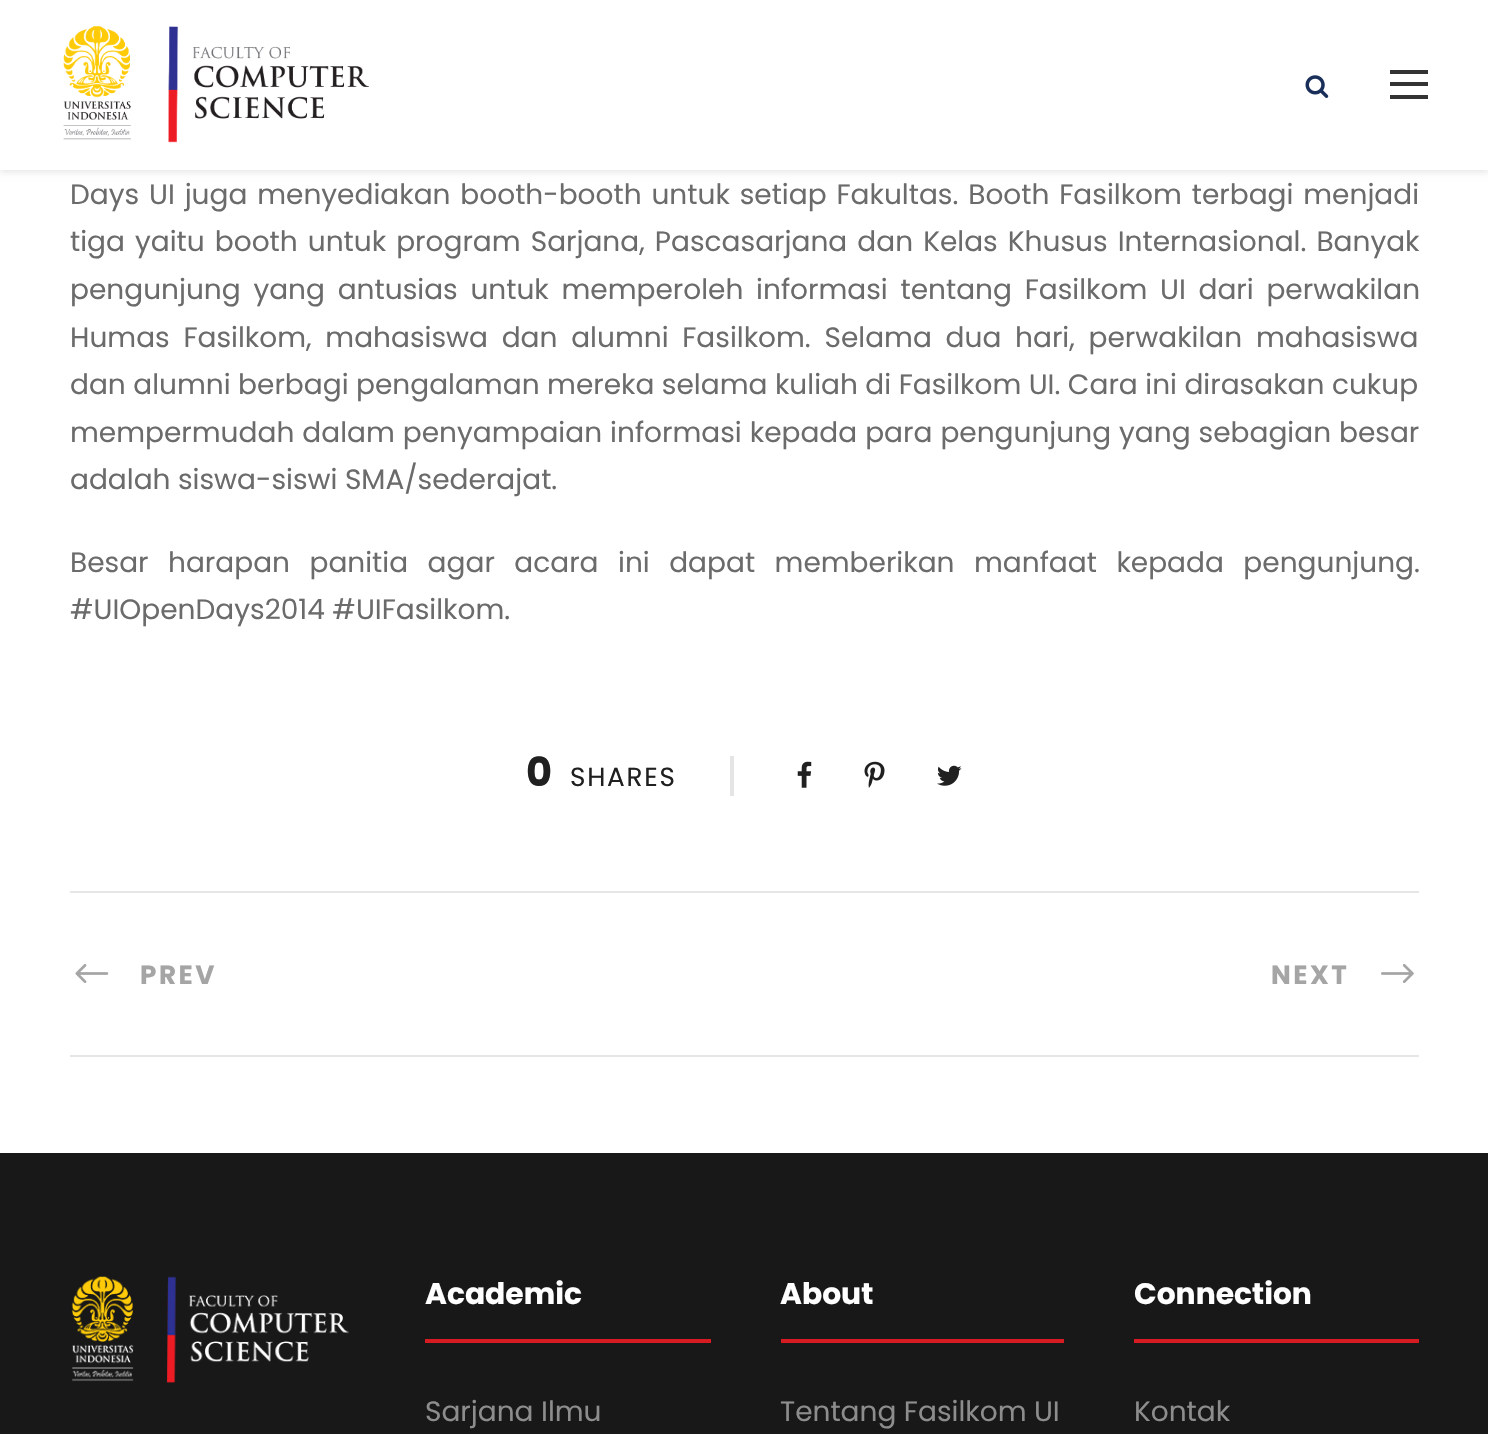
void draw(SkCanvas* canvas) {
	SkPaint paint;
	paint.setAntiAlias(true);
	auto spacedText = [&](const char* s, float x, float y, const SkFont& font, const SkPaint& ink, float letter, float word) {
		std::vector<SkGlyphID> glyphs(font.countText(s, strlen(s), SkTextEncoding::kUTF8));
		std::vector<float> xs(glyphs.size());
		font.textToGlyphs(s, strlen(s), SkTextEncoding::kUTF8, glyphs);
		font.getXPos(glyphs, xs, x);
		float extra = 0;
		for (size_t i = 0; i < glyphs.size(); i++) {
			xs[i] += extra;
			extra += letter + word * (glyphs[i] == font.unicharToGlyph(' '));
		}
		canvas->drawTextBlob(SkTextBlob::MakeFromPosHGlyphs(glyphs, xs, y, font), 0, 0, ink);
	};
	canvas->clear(0xffffffff);
	paint.setColor(0x1a000000);
	paint.setMaskFilter(SkMaskFilter::MakeBlur(kNormal_SkBlurStyle, 3.5));
	canvas->drawRect(SkRect::MakeXYWH(0, 2, 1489, 170), paint);
	paint.setMaskFilter(nullptr);
	paint.setColor(0xffffffff);
	canvas->drawRect(SkRect::MakeXYWH(0, 0, 1488, 170), paint);
	canvas->drawImageRect(SkImages::DeferredFromEncodedData(SkData::MakeFromFileName("img1.png")), SkRect::MakeXYWH(63, 26, 306, 117), SkSamplingOptions());
	canvas->drawImageRect(SkImages::DeferredFromEncodedData(SkData::MakeFromFileName("img2.png")), SkRect::MakeXYWH(1305, 75, 24, 23), SkSamplingOptions());
	paint.setColor(0xff333333);
	canvas->drawRect(SkRect::MakeXYWH(1390, 70, 38, 4), paint);
	canvas->drawRect(SkRect::MakeXYWH(1390, 82, 38, 4), paint);
	canvas->drawRect(SkRect::MakeXYWH(1390, 95, 38, 4), paint);
	SkFont f1(fontMgr->matchFamilyStyle("Poppins", SkFontStyle::Normal()), 28);
	f1.setSubpixel(true);
	paint.setColor(0xff6b6b6b);
	spacedText("Days UI juga menyediakan booth-booth untuk setiap Fakultas. Booth Fasilkom terbagi menjadi", 70, 204, f1, paint, 0, 2.4);
	spacedText("tiga yaitu booth untuk program Sarjana, Pascasarjana dan Kelas Khusus Internasional. Banyak", 70, 251, f1, paint, 0, 2.6);
	spacedText("pengunjung yang antusias untuk memperoleh informasi tentang Fasilkom UI dari perwakilan", 70, 299, f1, paint, 0, 5.25);
	spacedText("Humas Fasilkom, mahasiswa dan alumni Fasilkom. Selama dua hari, perwakilan mahasiswa", 70, 347, f1, paint, 0, 6.25);
	canvas->drawString("dan alumni berbagi pengalaman mereka selama kuliah di Fasilkom UI. Cara ini dirasakan cukup", 70, 394, f1, paint);
	spacedText("mempermudah dalam penyampaian informasi kepada para pengunjung yang sebagian besar", 70, 442, f1, paint, 0, 0.5);
	canvas->drawString("adalah siswa-siswi SMA/sederajat.", 70, 489, f1, paint);
	spacedText("Besar harapan panitia agar acara ini dapat memberikan manfaat kepada pengunjung.", 70, 572, f1, paint, 0, 12);
	canvas->drawString("#UIOpenDays2014 #UIFasilkom.", 70, 619, f1, paint);
	SkFont f2(fontMgr->matchFamilyStyle("Poppins", SkFontStyle::Bold()), 40);
	f2.setSubpixel(true);
	paint.setColor(0xff202020);
	canvas->drawString("0", 526, 786, f2, paint);
	SkFont f3(fontMgr->matchFamilyStyle("Poppins", SkFontStyle::Normal()), 26.25);
	f3.setSubpixel(true);
	spacedText("SHARES", 570, 786, f3, paint, 1.75, 0);
	paint.setColor(0xffe5e5e5);
	canvas->drawRect(SkRect::MakeXYWH(730, 756, 4, 40), paint);
	canvas->drawImageRect(SkImages::DeferredFromEncodedData(SkData::MakeFromFileName("img3.png")), SkRect::MakeXYWH(797, 761, 15, 27), SkSamplingOptions());
	canvas->drawImageRect(SkImages::DeferredFromEncodedData(SkData::MakeFromFileName("img4.png")), SkRect::MakeXYWH(864, 761, 21, 27), SkSamplingOptions());
	canvas->drawImageRect(SkImages::DeferredFromEncodedData(SkData::MakeFromFileName("img5.png")), SkRect::MakeXYWH(937, 765, 25, 21), SkSamplingOptions());
	paint.setColor(0xffe6e6e6);
	canvas->drawRect(SkRect::MakeXYWH(70, 891, 1349, 2), paint);
	canvas->drawRect(SkRect::MakeXYWH(70, 1055, 1349, 2), paint);
	canvas->drawImageRect(SkImages::DeferredFromEncodedData(SkData::MakeFromFileName("img6.png")), SkRect::MakeXYWH(75, 964, 34, 19), SkSamplingOptions());
	SkFont f4(fontMgr->matchFamilyStyle("Poppins", SkFontStyle::Bold()), 26.25);
	f4.setSubpixel(true);
	paint.setColor(0xffa5a5a5);
	spacedText("PREV", 140, 984, f4, paint, 2.5, 0);
	spacedText("NEXT", 1271, 984, f4, paint, 2.5, 0);
	canvas->drawImageRect(SkImages::DeferredFromEncodedData(SkData::MakeFromFileName("img7.png")), SkRect::MakeXYWH(1381, 964, 33, 19), SkSamplingOptions());
	paint.setColor(0xff181818);
	canvas->drawRect(SkRect::MakeXYWH(0, 1153, 1488, 281), paint);
	canvas->drawImageRect(SkImages::DeferredFromEncodedData(SkData::MakeFromFileName("img8.png")), SkRect::MakeXYWH(71, 1276, 278, 107), SkSamplingOptions());
	paint.setColor(0xffd61b23);
	canvas->drawRect(SkRect::MakeXYWH(425, 1339, 286, 4), paint);
	SkFont f5(fontMgr->matchFamilyStyle("Poppins", SkFontStyle::Bold()), 29.75);
	f5.setSubpixel(true);
	paint.setColor(0xffffffff);
	canvas->drawString("Academic", 425, 1304, f5, paint);
	paint.setColor(0xff8d8d8d);
	canvas->drawString("Sarjana Ilmu", 425, 1421, f1, paint);
	paint.setColor(0xffd61b23);
	canvas->drawRect(SkRect::MakeXYWH(781, 1339, 283, 4), paint);
	paint.setColor(0xffffffff);
	canvas->drawString("About", 780, 1304, f5, paint);
	paint.setColor(0xff8d8d8d);
	canvas->drawString("Tentang Fasilkom UI", 780, 1421, f1, paint);
	paint.setColor(0xffd61b23);
	canvas->drawRect(SkRect::MakeXYWH(1134, 1339, 285, 4), paint);
	paint.setColor(0xffffffff);
	canvas->drawString("Connection", 1134, 1304, f5, paint);
	paint.setColor(0xff8d8d8d);
	canvas->drawString("Kontak", 1134, 1421, f1, paint);
}
